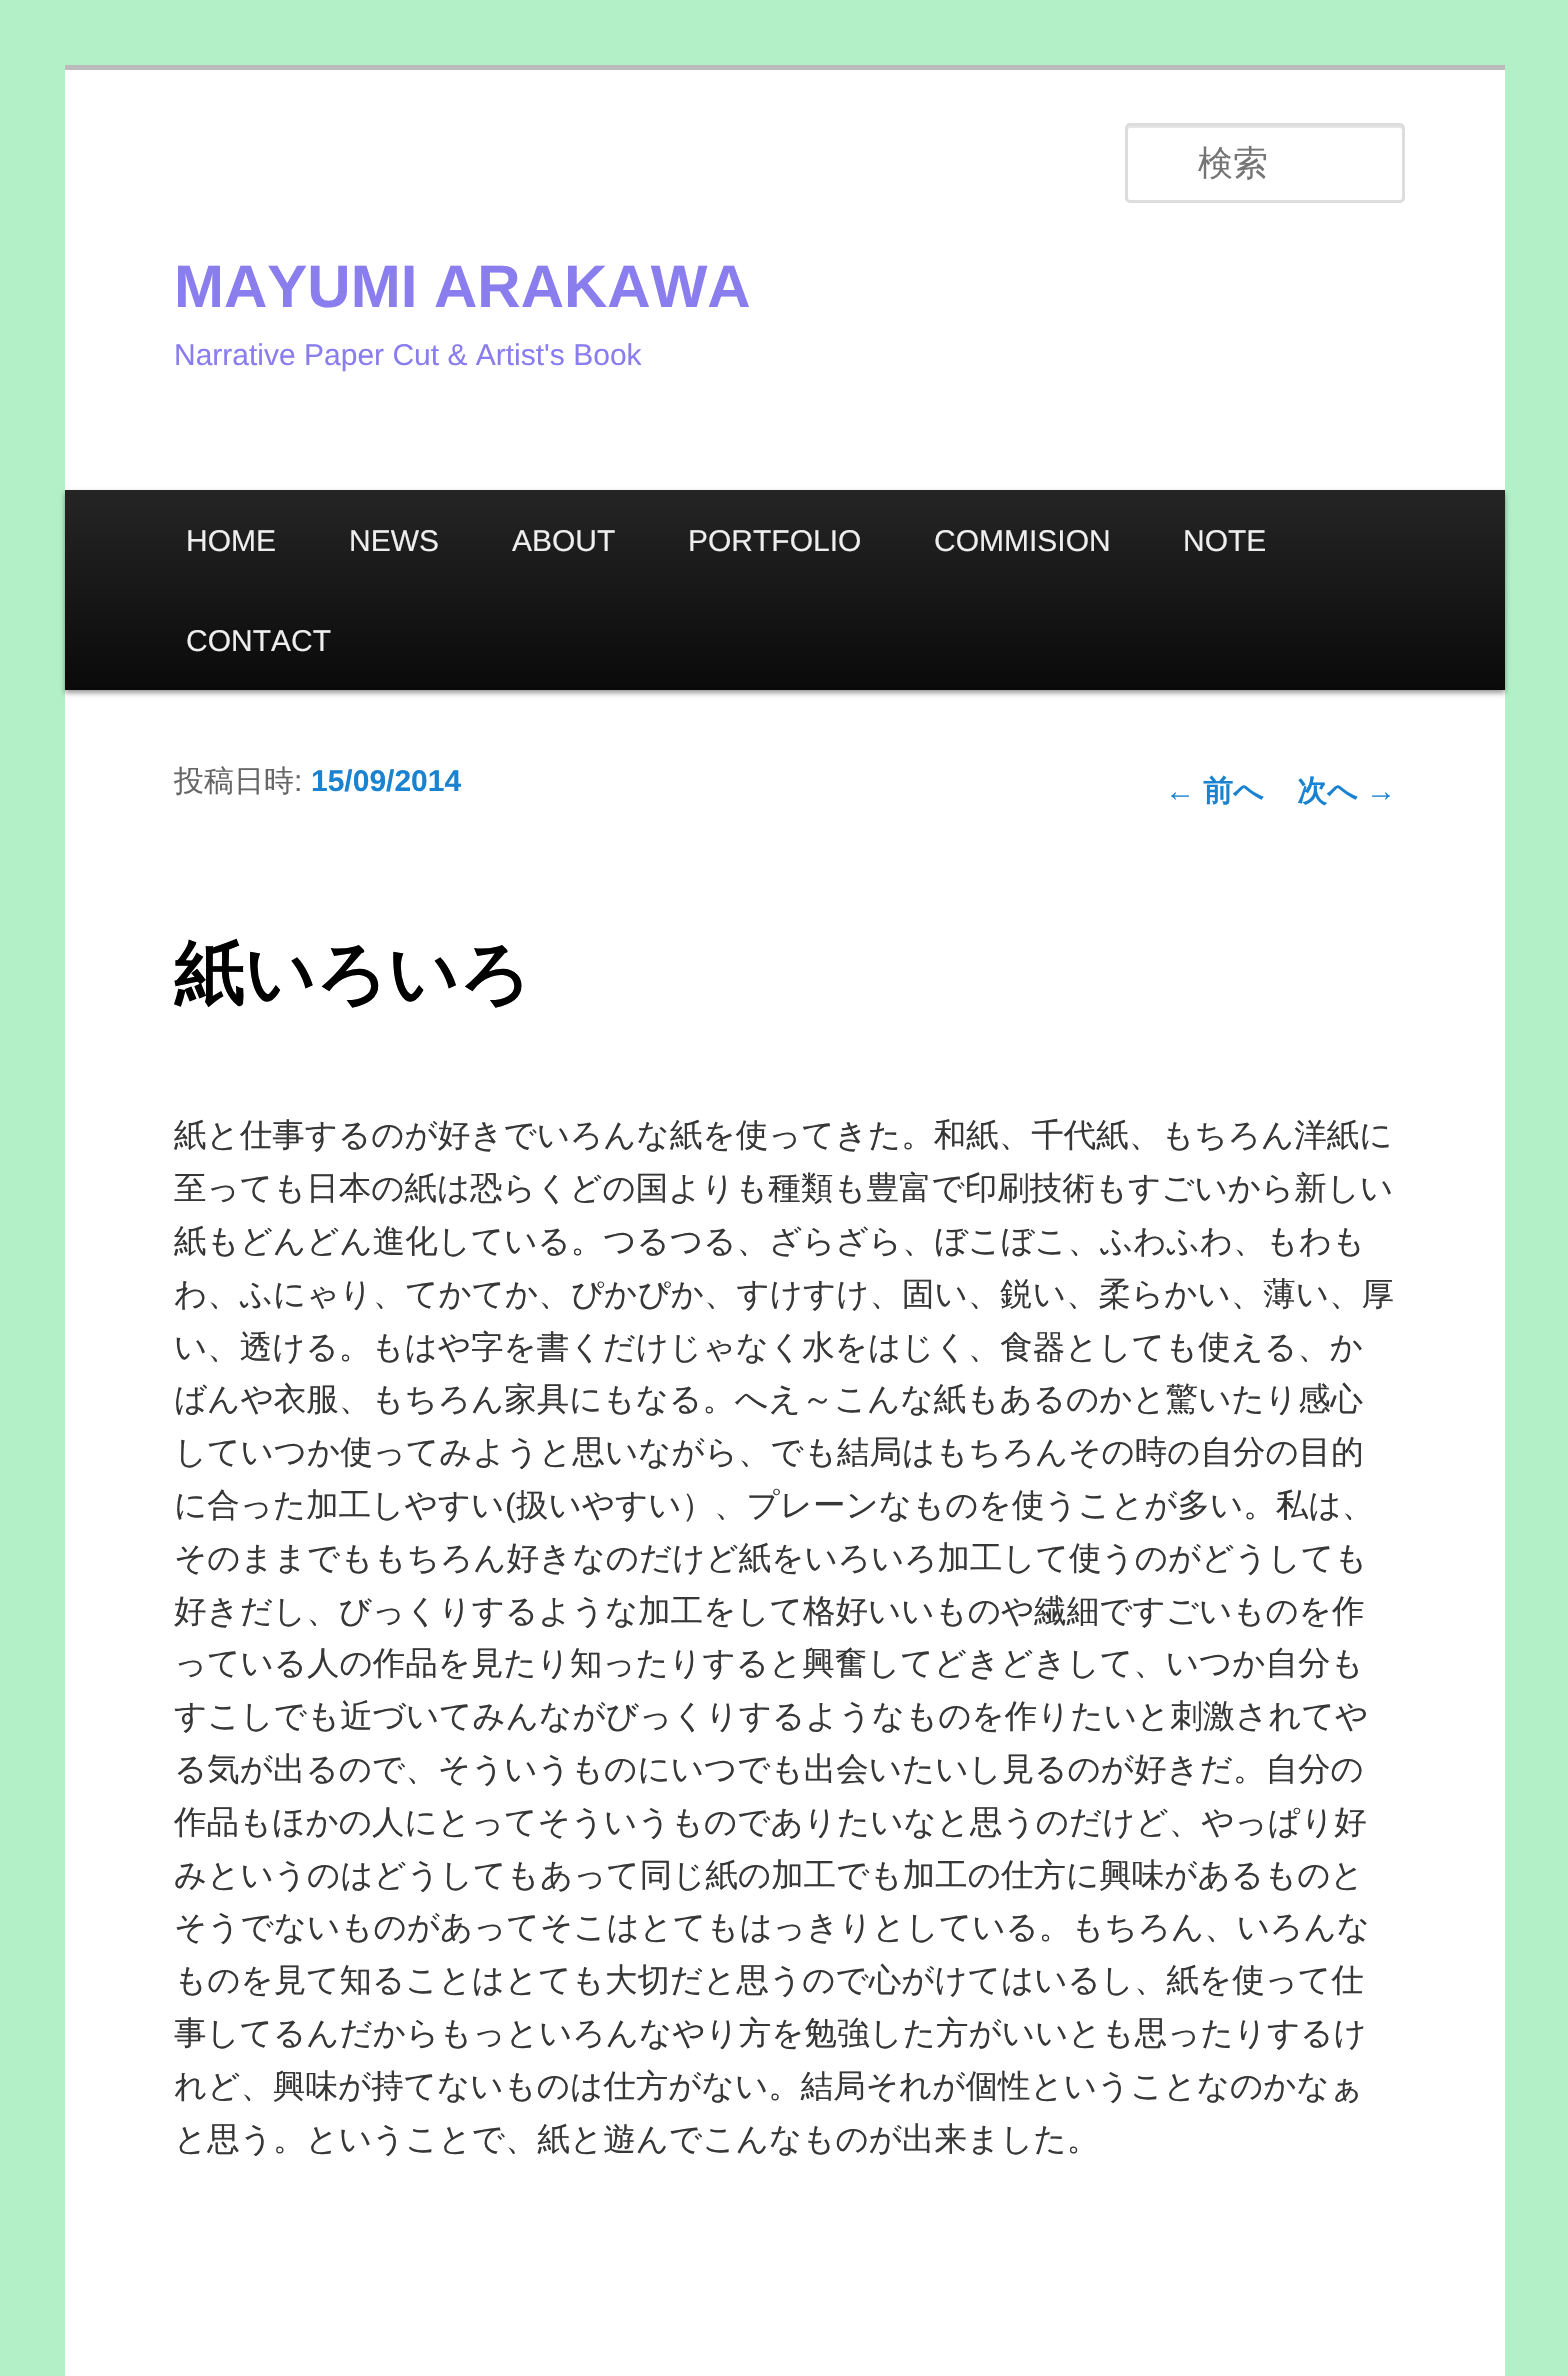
void draw(SkCanvas* canvas) {
	SkPaint paint;
	paint.setAntiAlias(true);
	auto svgPath = [&](const char* data, bool evenOdd = false) {
		SkPath result = *SkParsePath::FromSVGString(data);
		if (evenOdd) result.setFillType(SkPathFillType::kEvenOdd);
		return result;
	};
	canvas->clear(0xffb3efc7);
	paint.setColor(0xffffffff);
	canvas->drawRect(SkRect::MakeXYWH(65, 70, 1440, 2306), paint);
	paint.setColor(0xffbbbbbb);
	canvas->drawRect(SkRect::MakeXYWH(65, 65, 1440, 5), paint);
	paint.setColor(0xffe6e6e6);
	canvas->drawPath(svgPath("M1130 128H1400C1401 128 1402 129 1402 130V200C1403 199 1403 198 1403 198V128C1403 126 1402 125 1400 125H1130C1129 125 1128 126 1128 128V130C1128 129 1129 128 1130 128Z"), paint);
	paint.setStroke(true);
	paint.setStrokeWidth(3);
	paint.setColor(0xffdddddd);
	canvas->drawRoundRect(SkRect::MakeXYWH(1126.5, 124.5, 277, 77), 3.5, 3.5, paint);
	SkFont f1(fontMgr->matchFamilyStyle("WenQuanYi Zen Hei", SkFontStyle(500, SkFontStyle::kNormal_Width, SkFontStyle::kUpright_Slant)), 35);
	f1.setSubpixel(true);
	paint.setStroke(false);
	paint.setColor(0xff757575);
	canvas->drawString("検索", 1198, 175, f1, paint);
	SkFont f2(fontMgr->matchFamilyStyle("Liberation Sans", SkFontStyle::Bold()), 60);
	f2.setSubpixel(true);
	paint.setColor(0xff8a7ded);
	canvas->drawString("MAYUMI ARAKAWA", 174, 307, f2, paint);
	SkFont f3(fontMgr->matchFamilyStyle("Liberation Sans", SkFontStyle::Normal()), 30);
	f3.setSubpixel(true);
	canvas->drawString("Narrative Paper Cut & Artist's Book", 174, 365, f3, paint);
	paint.setColor(0x66000000);
	paint.setMaskFilter(SkMaskFilter::MakeBlur(kNormal_SkBlurStyle, 2.5));
	canvas->drawRect(SkRect::MakeXYWH(65, 493, 1440, 200), paint);
	paint.setMaskFilter(nullptr);
	{
		const SkColor colors[] = {0xff252525, 0xff0a0a0a};
		const float stops[] = {0, 1};
		const SkPoint ends[] = {{785, 490}, {785, 690}};
		paint.setShader(SkGradientShader::MakeLinear(ends, colors, stops, 2, SkTileMode::kClamp));
		paint.setAlpha(255);
	}
	canvas->drawRect(SkRect::MakeXYWH(65, 490, 1440, 200), paint);
	paint.setShader(nullptr);
	paint.setColor(0xffeeeeee);
	canvas->drawString("HOME", 186, 551, f3, paint);
	canvas->drawString("NEWS", 349, 551, f3, paint);
	canvas->drawString("ABOUT", 512, 551, f3, paint);
	canvas->drawString("PORTFOLIO", 688, 551, f3, paint);
	canvas->drawString("COMMISION", 934, 551, f3, paint);
	canvas->drawString("NOTE", 1183, 551, f3, paint);
	canvas->drawString("CONTACT", 186, 651, f3, paint);
	SkFont f4(fontMgr->matchFamilyStyle("WenQuanYi Zen Hei", SkFontStyle(500, SkFontStyle::kNormal_Width, SkFontStyle::kUpright_Slant)), 30);
	f4.setSubpixel(true);
	paint.setColor(0xff666666);
	canvas->drawString("投稿日時", 174, 791, f4, paint);
	canvas->drawString(":", 294, 791, f3, paint);
	SkFont f5(fontMgr->matchFamilyStyle("Liberation Sans", SkFontStyle::Bold()), 30);
	f5.setSubpixel(true);
	paint.setColor(0xff1982d1);
	canvas->drawString("15/09/2014", 311, 791, f5, paint);
	SkFont f6(fontMgr->matchFamilyStyle("WenQuanYi Zen Hei", SkFontStyle::Bold()), 70);
	f6.setSubpixel(true);
	paint.setColor(0xff000000);
	canvas->drawString("紙いろいろ", 174, 998, f6, paint);
	SkFont f7(fontMgr->matchFamilyStyle("WenQuanYi Zen Hei", SkFontStyle(500, SkFontStyle::kNormal_Width, SkFontStyle::kUpright_Slant)), 32.5);
	f7.setSubpixel(true);
	paint.setColor(0xff373737);
	canvas->drawString("紙と仕事するのが好きでいろんな紙を使ってきた。和紙、千代紙、もちろん洋紙に", 174, 1146, f7, paint);
	canvas->drawString("至っても日本の紙は恐らくどの国よりも種類も豊富で印刷技術もすごいから新しい", 174, 1199, f7, paint);
	canvas->drawString("紙もどんどん進化している。つるつる、ざらざら、ぼこぼこ、ふわふわ、もわも", 174, 1252, f7, paint);
	canvas->drawString("わ、ふにゃり、てかてか、ぴかぴか、すけすけ、固い、鋭い、柔らかい、薄い、厚", 174, 1305, f7, paint);
	canvas->drawString("い、透ける。もはや字を書くだけじゃなく水をはじく、食器としても使える、か", 174, 1358, f7, paint);
	canvas->drawString("ばんや衣服、もちろん家具にもなる。へえ～こんな紙もあるのかと驚いたり感心", 174, 1410, f7, paint);
	canvas->drawString("していつか使ってみようと思いながら、でも結局はもちろんその時の自分の目的", 174, 1463, f7, paint);
	canvas->drawString("に合った加工しやすい", 174, 1516, f7, paint);
	SkFont f8(fontMgr->matchFamilyStyle("Liberation Sans", SkFontStyle::Normal()), 32.5);
	f8.setSubpixel(true);
	canvas->drawString("(", 505, 1516, f8, paint);
	canvas->drawString("扱いやすい）、プレーンなものを使うことが多い。私は、", 516, 1516, f7, paint);
	canvas->drawString("そのままでももちろん好きなのだけど紙をいろいろ加工して使うのがどうしても", 174, 1569, f7, paint);
	canvas->drawString("好きだし、びっくりするような加工をして格好いいものや繊細ですごいものを作", 174, 1622, f7, paint);
	canvas->drawString("っている人の作品を見たり知ったりすると興奮してどきどきして、いつか自分も", 174, 1674, f7, paint);
	canvas->drawString("すこしでも近づいてみんながびっくりするようなものを作りたいと刺激されてや", 174, 1727, f7, paint);
	canvas->drawString("る気が出るので、そういうものにいつでも出会いたいし見るのが好きだ。自分の", 174, 1780, f7, paint);
	canvas->drawString("作品もほかの人にとってそういうものでありたいなと思うのだけど、やっぱり好", 174, 1833, f7, paint);
	canvas->drawString("みというのはどうしてもあって同じ紙の加工でも加工の仕方に興味があるものと", 174, 1886, f7, paint);
	canvas->drawString("そうでないものがあってそこはとてもはっきりとしている。もちろん、いろんな", 174, 1938, f7, paint);
	canvas->drawString("ものを見て知ることはとても大切だと思うので心がけてはいるし、紙を使って仕", 174, 1991, f7, paint);
	canvas->drawString("事してるんだからもっといろんなやり方を勉強した方がいいとも思ったりするけ", 174, 2044, f7, paint);
	canvas->drawString("れど、興味が持てないものは仕方がない。結局それが個性ということなのかなぁ", 174, 2097, f7, paint);
	canvas->drawString("と思う。ということで、紙と遊んでこんなものが出来ました。", 174, 2150, f7, paint);
	paint.setColor(0xff1982d1);
	canvas->drawString("←", 1165, 801, f3, paint);
	SkFont f9(fontMgr->matchFamilyStyle("WenQuanYi Zen Hei", SkFontStyle::Bold()), 30);
	f9.setSubpixel(true);
	canvas->drawString("前へ", 1203, 801, f9, paint);
	canvas->drawString("次へ", 1297, 801, f9, paint);
	canvas->drawString("→", 1366, 801, f3, paint);
}
